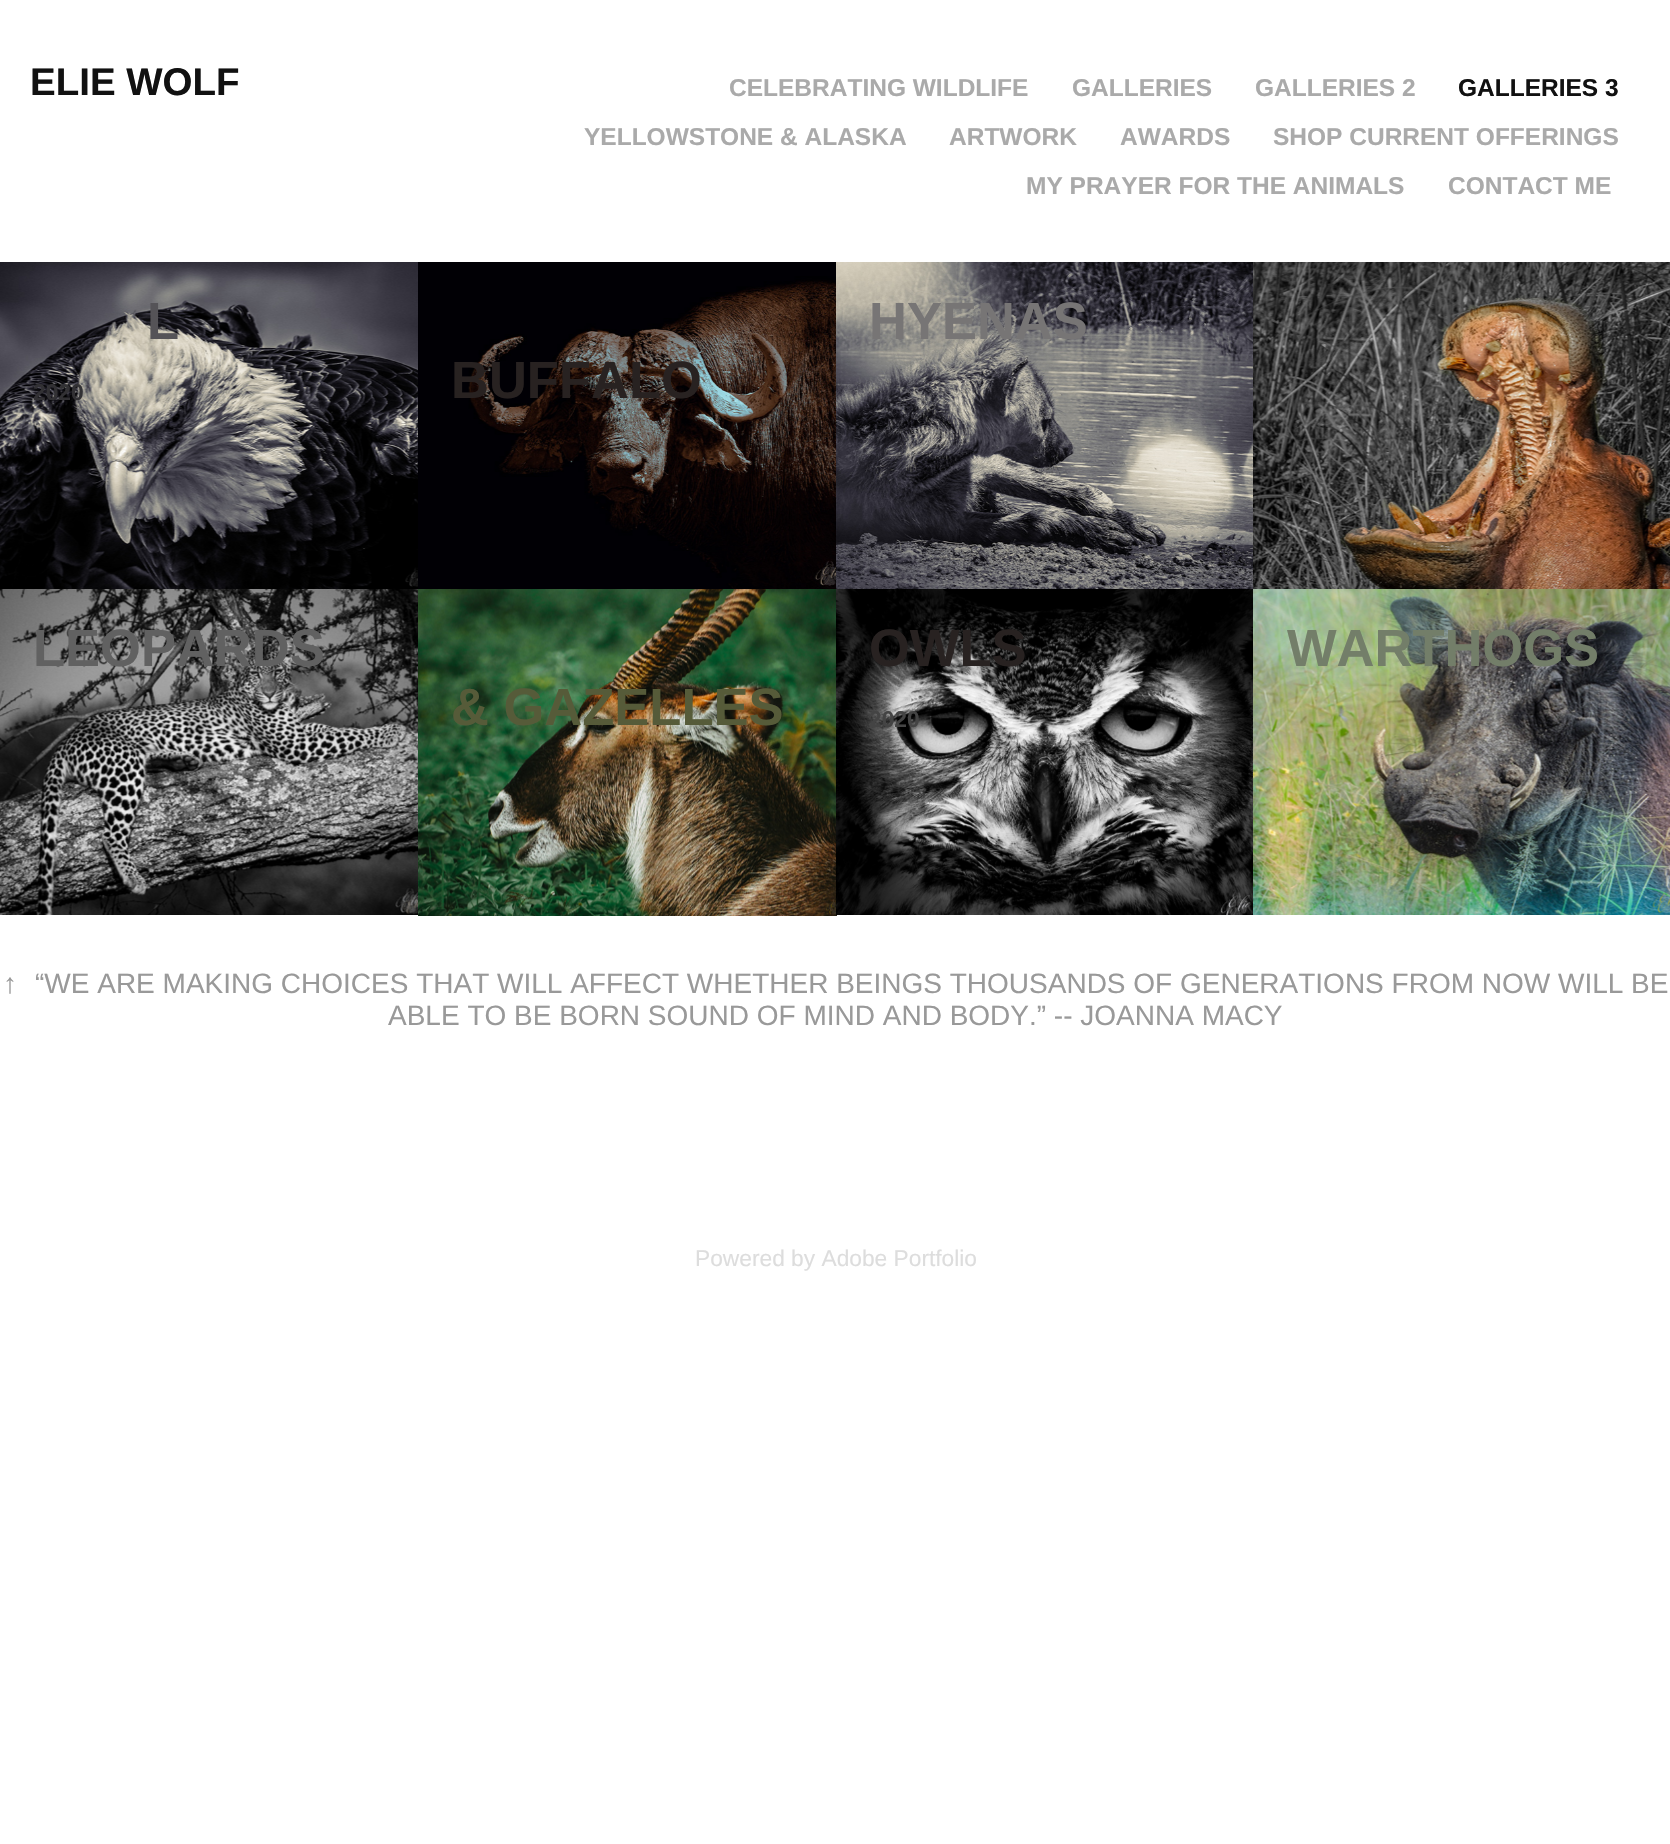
void draw(SkCanvas* canvas) {
	SkPaint paint;
	paint.setAntiAlias(true);
	canvas->clear(0xffffffff);
	SkFont f1(fontMgr->matchFamilyStyle("Liberation Sans", SkFontStyle::Bold()), 38.5);
	f1.setSubpixel(true);
	paint.setColor(0xff111111);
	canvas->drawString("ELIE WOLF", 30, 95, f1, paint);
	SkFont f2(fontMgr->matchFamilyStyle("Liberation Sans", SkFontStyle::Bold()), 24.5);
	f2.setSubpixel(true);
	paint.setColor(0xffaaaaaa);
	canvas->drawString("CELEBRATING WILDLIFE", 729, 96, f2, paint);
	canvas->drawString("GALLERIES", 1072, 96, f2, paint);
	canvas->drawString("GALLERIES 2", 1255, 96, f2, paint);
	paint.setColor(0xff111111);
	canvas->drawString("GALLERIES 3", 1458, 96, f2, paint);
	paint.setColor(0xffaaaaaa);
	canvas->drawString("YELLOWSTONE & ALASKA", 584, 145, f2, paint);
	canvas->drawString("ARTWORK", 949, 145, f2, paint);
	canvas->drawString("AWARDS", 1120, 145, f2, paint);
	canvas->drawString("SHOP CURRENT OFFERINGS", 1273, 145, f2, paint);
	canvas->drawString("MY PRAYER FOR THE ANIMALS", 1026, 194, f2, paint);
	canvas->drawString("CONTACT ME", 1448, 194, f2, paint);
	canvas->drawImageRect(SkImages::DeferredFromEncodedData(SkData::MakeFromFileName("img1.png")), SkRect::MakeXYWH(0, 262, 418, 327), SkSamplingOptions());
	SkFont f3(fontMgr->matchFamilyStyle("Liberation Sans", SkFontStyle::Bold()), 52.5);
	f3.setSubpixel(true);
	paint.setColor(0xff555357);
	canvas->drawString("L", 147, 339, f3, paint);
	SkFont f4(fontMgr->matchFamilyStyle("Liberation Sans", SkFontStyle::Bold()), 22.75);
	f4.setSubpixel(true);
	paint.setColor(0xff323134);
	canvas->drawString("2020", 33, 400, f4, paint);
	canvas->drawImageRect(SkImages::DeferredFromEncodedData(SkData::MakeFromFileName("img2.png")), SkRect::MakeXYWH(836, 262, 417, 327), SkSamplingOptions());
	paint.setColor(0xff777575);
	canvas->drawString("HYENAS", 869, 339, f3, paint);
	canvas->drawImageRect(SkImages::DeferredFromEncodedData(SkData::MakeFromFileName("img3.png")), SkRect::MakeXYWH(1253, 262, 417, 327), SkSamplingOptions());
	canvas->drawImageRect(SkImages::DeferredFromEncodedData(SkData::MakeFromFileName("img4.png")), SkRect::MakeXYWH(418, 262, 418, 327), SkSamplingOptions());
	paint.setColor(0xff282221);
	canvas->drawString("BUFFALO", 451, 398, f3, paint);
	canvas->drawImageRect(SkImages::DeferredFromEncodedData(SkData::MakeFromFileName("img5.png")), SkRect::MakeXYWH(0, 589, 418, 326), SkSamplingOptions());
	paint.setColor(0xff616161);
	canvas->drawString("LEOPARDS", 33, 666, f3, paint);
	canvas->drawImageRect(SkImages::DeferredFromEncodedData(SkData::MakeFromFileName("img8.png")), SkRect::MakeXYWH(418, 589, 419, 327), SkSamplingOptions());
	canvas->drawImageRect(SkImages::DeferredFromEncodedData(SkData::MakeFromFileName("img6.png")), SkRect::MakeXYWH(836, 589, 417, 326), SkSamplingOptions());
	paint.setColor(0xff282221);
	canvas->drawString("OWLS", 869, 666, f3, paint);
	paint.setColor(0xff444444);
	canvas->drawString("2020", 869, 727, f4, paint);
	canvas->drawImageRect(SkImages::DeferredFromEncodedData(SkData::MakeFromFileName("img7.png")), SkRect::MakeXYWH(1253, 589, 417, 326), SkSamplingOptions());
	paint.setColor(0xff737e69);
	canvas->drawString("WARTHOGS", 1287, 666, f3, paint);
	paint.setColor(0xff565b39);
	canvas->drawString("& GAZELLES", 451, 725, f3, paint);
	SkFont f5(fontMgr->matchFamilyStyle("Liberation Sans", SkFontStyle::Normal()), 28);
	f5.setSubpixel(true);
	paint.setColor(0xff999999);
	canvas->drawString("↑", 3, 993, f5, paint);
	canvas->drawString("“WE ARE MAKING CHOICES THAT WILL AFFECT WHETHER BEINGS THOUSANDS OF GENERATIONS FROM NOW WILL BE", 35, 993, f5, paint);
	canvas->drawString("ABLE TO BE BORN SOUND OF MIND AND BODY.” -- JOANNA MACY", 388, 1025, f5, paint);
	SkFont f6(fontMgr->matchFamilyStyle("Liberation Sans", SkFontStyle::Normal()), 22.75);
	f6.setSubpixel(true);
	paint.setColor(0xffdddddd);
	canvas->drawString("Powered by Adobe Portfolio", 695, 1266, f6, paint);
}
